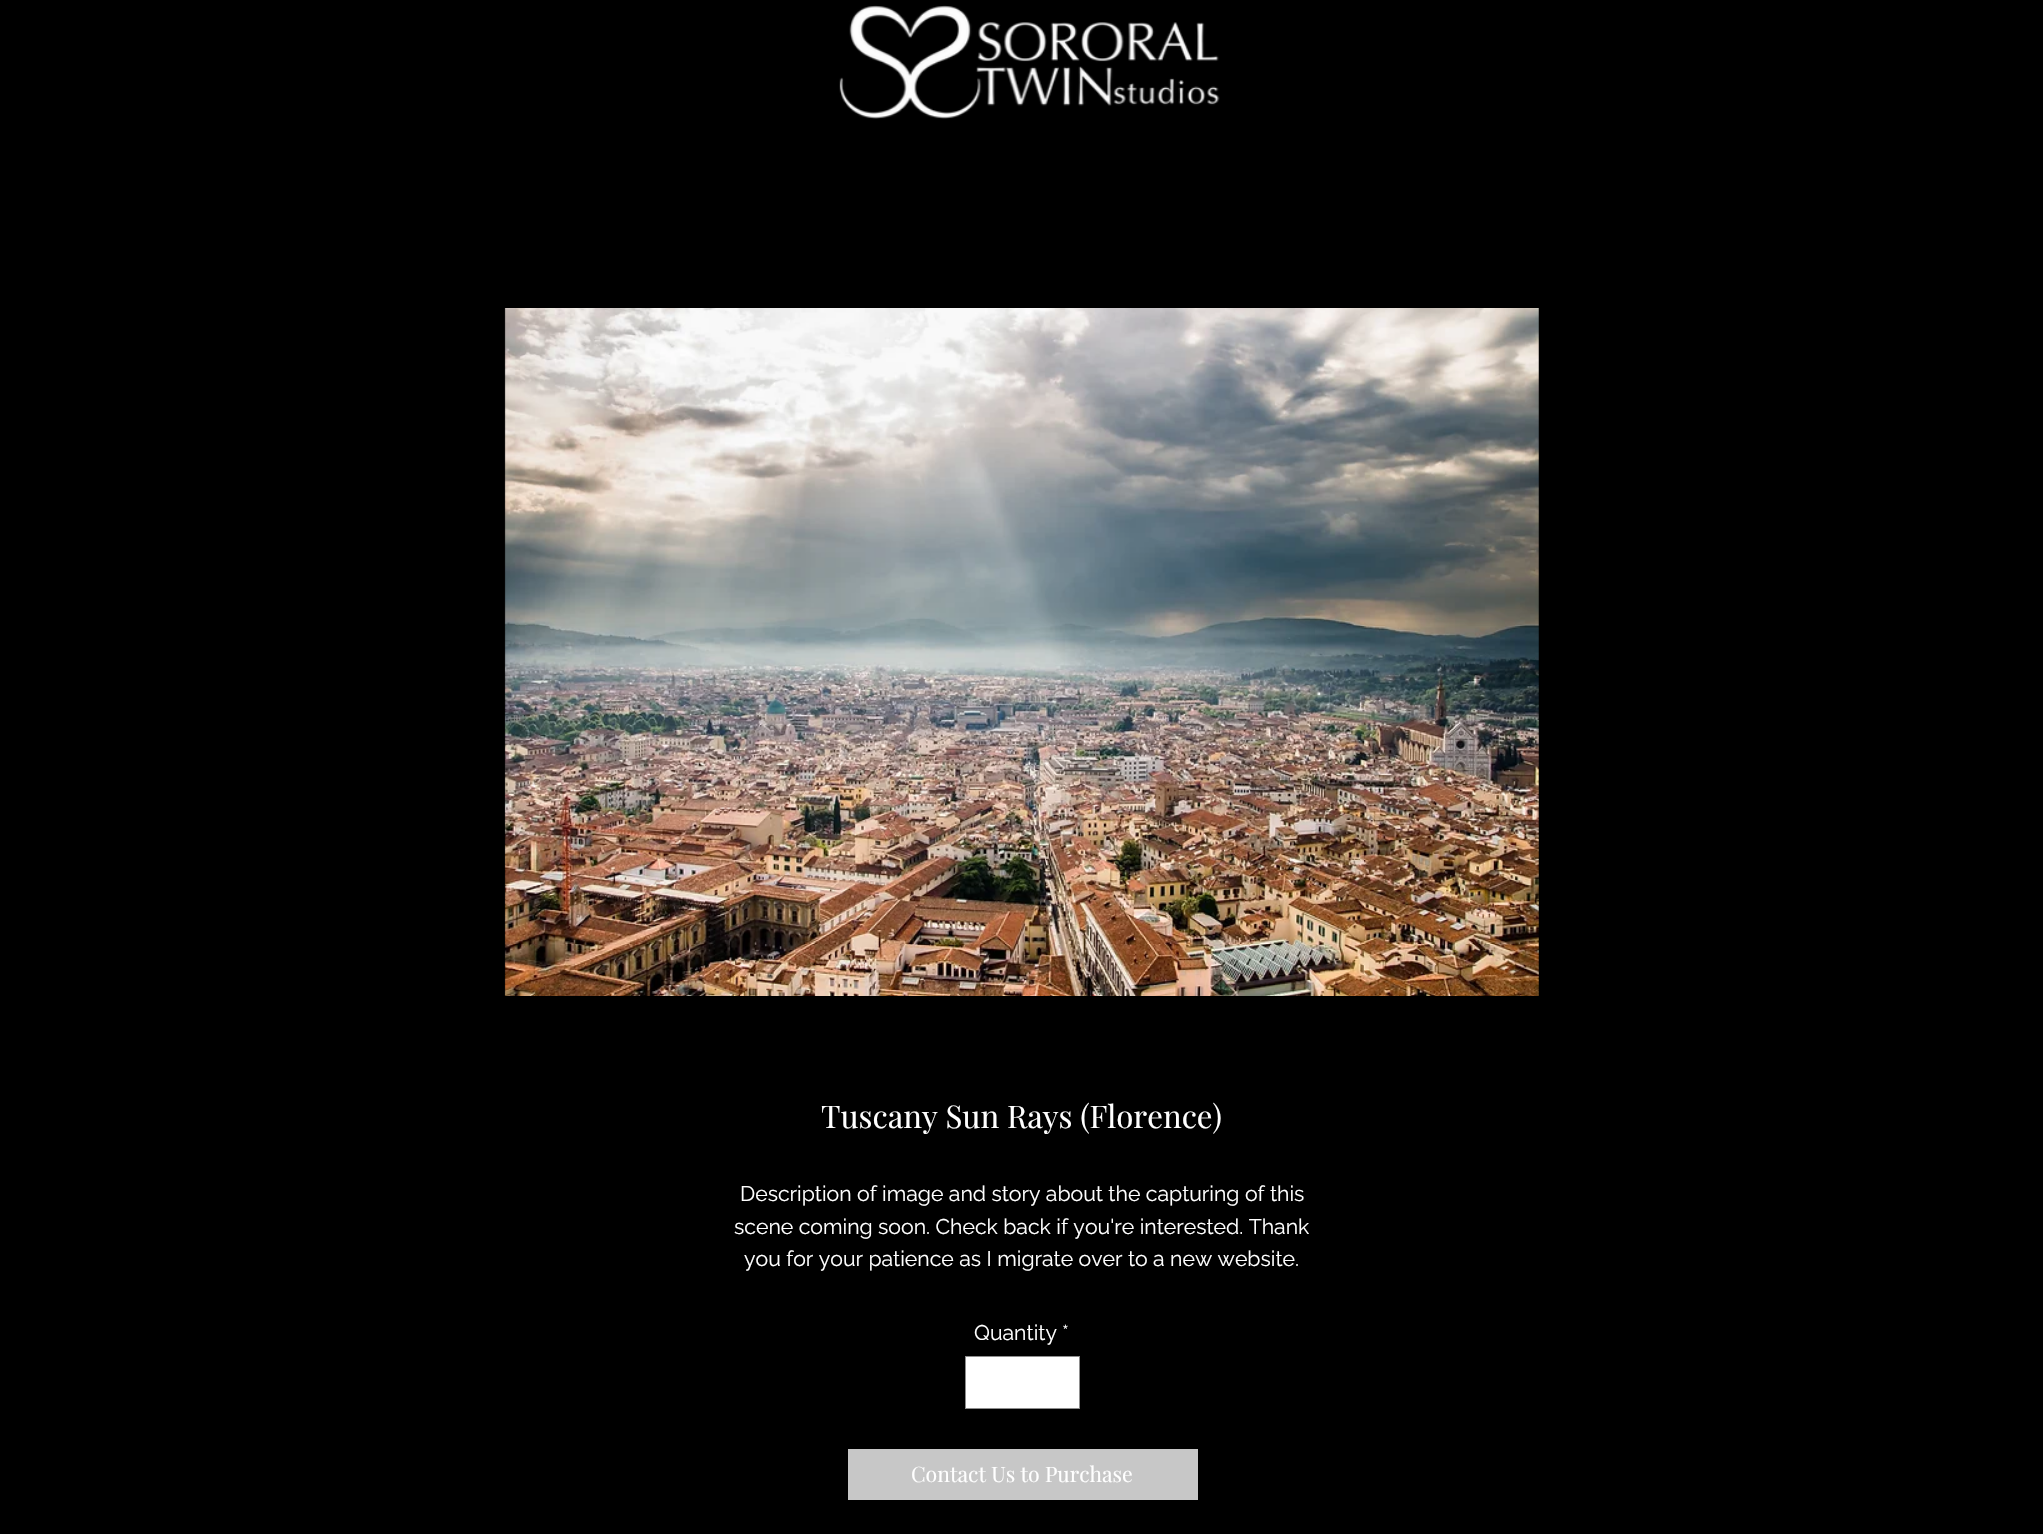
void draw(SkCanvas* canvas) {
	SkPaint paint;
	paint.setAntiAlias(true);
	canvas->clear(0xff000000);
	canvas->drawImageRect(SkImages::DeferredFromEncodedData(SkData::MakeFromFileName("img1.png")), SkRect::MakeXYWH(839, 5, 381, 114), SkSamplingOptions());
	canvas->drawImageRect(SkImages::DeferredFromEncodedData(SkData::MakeFromFileName("img2.png")), SkRect::MakeXYWH(504, 308, 1035, 688), SkSamplingOptions());
	SkFont f1(fontMgr->matchFamilyStyle("Playfair Display", SkFontStyle::Normal()), 31.25);
	f1.setSubpixel(true);
	paint.setColor(0xffffffff);
	canvas->drawString("Tuscany Sun Rays (Florence)", 821, 1128, f1, paint);
	SkFont f2(fontMgr->matchFamilyStyle("Raleway", SkFontStyle::Normal()), 21.25);
	f2.setSubpixel(true);
	canvas->drawString("Description of image and story about the capturing of this", 740, 1201, f2, paint);
	canvas->drawString("scene coming soon. Check back if you're interested. Thank", 734, 1234, f2, paint);
	canvas->drawString("you for your patience as I migrate over to a new website.", 744, 1266, f2, paint);
	canvas->drawString("Quantity", 974, 1340, f2, paint);
	canvas->drawString("*", 1062, 1340, f2, paint);
	canvas->drawRect(SkRect::MakeXYWH(965.5, 1356.5, 114, 52), paint);
	paint.setStroke(true);
	paint.setStrokeWidth(1);
	paint.setColor(0xff8d8d8d);
	canvas->drawRect(SkRect::MakeXYWH(965.5, 1356.5, 114, 52), paint);
	paint.setStroke(false);
	paint.setColor(0xffc7c7c7);
	canvas->drawRect(SkRect::MakeXYWH(848, 1449, 350, 51), paint);
	SkFont f3(fontMgr->matchFamilyStyle("Playfair Display", SkFontStyle::Normal()), 21.25);
	f3.setSubpixel(true);
	paint.setColor(0xffffffff);
	canvas->drawString("Contact Us to Purchase", 911, 1482, f3, paint);
}
